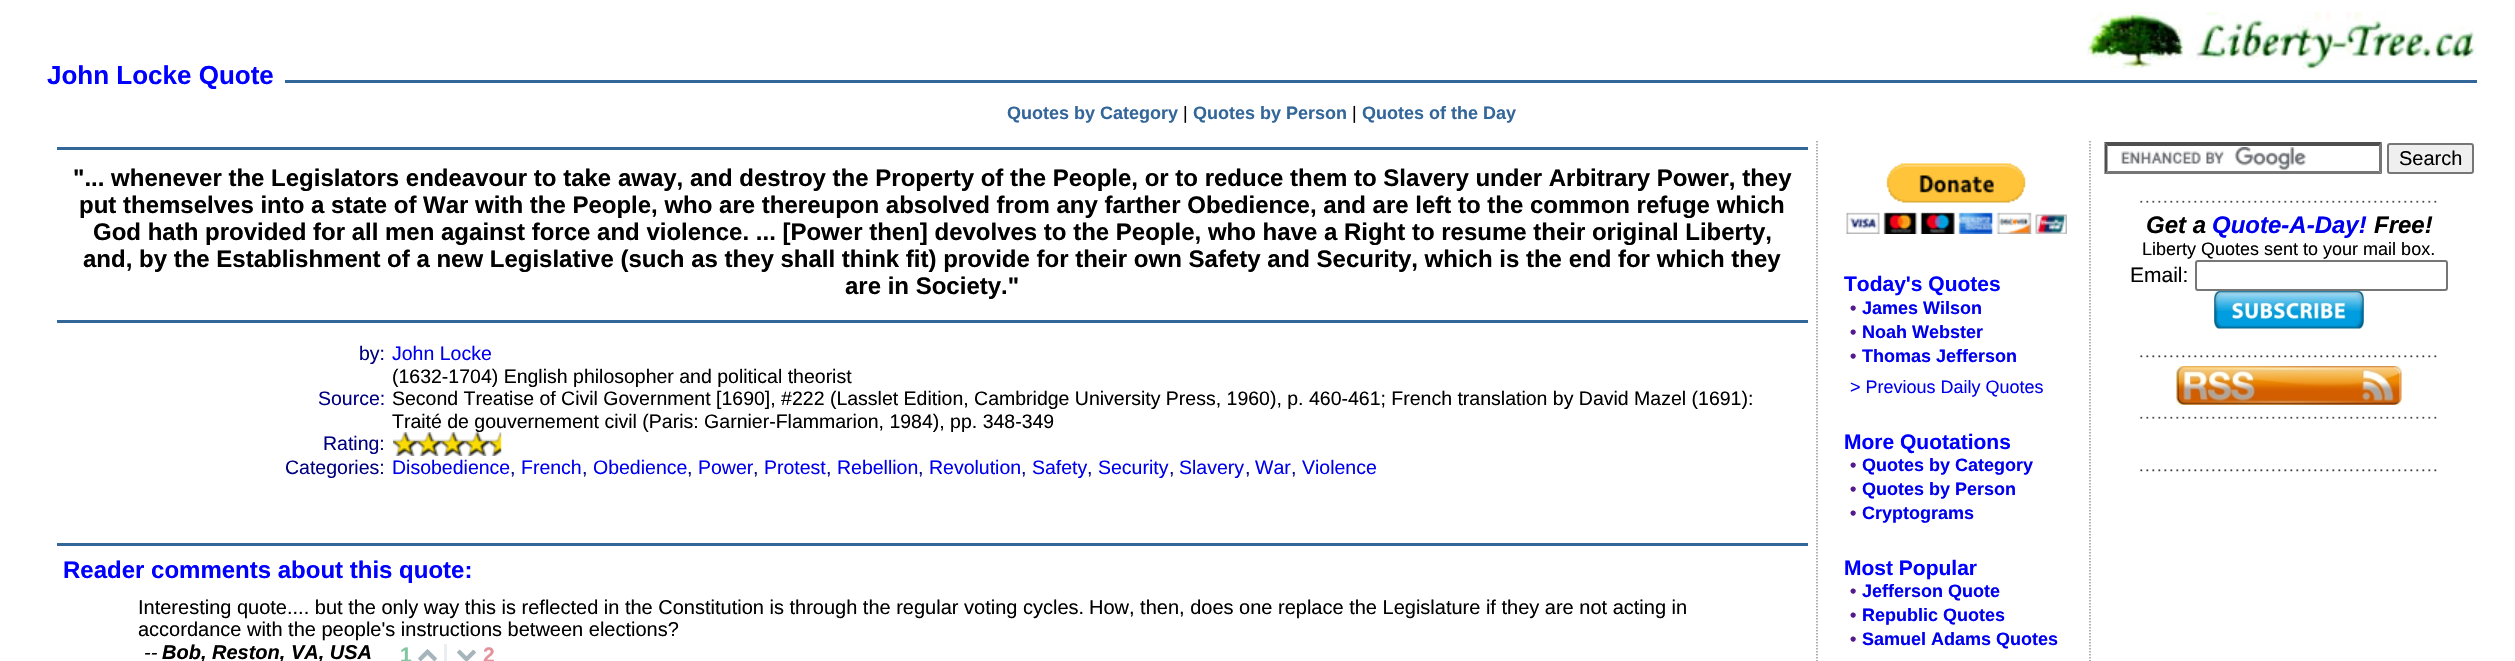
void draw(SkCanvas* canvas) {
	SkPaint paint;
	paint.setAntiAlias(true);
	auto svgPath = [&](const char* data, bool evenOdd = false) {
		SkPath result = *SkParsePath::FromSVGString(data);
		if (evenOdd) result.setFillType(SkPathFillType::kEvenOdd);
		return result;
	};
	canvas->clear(0xffffffff);
	paint.setColor(0xff336699);
	canvas->drawRect(SkRect::MakeXYWH(285, 80, 2192, 3), paint);
	canvas->drawImageRect(SkImages::DeferredFromEncodedData(SkData::MakeFromFileName("img1.png")), SkRect::MakeXYWH(2086, 12, 391, 57), SkSamplingOptions());
	SkFont f1(fontMgr->matchFamilyStyle("Liberation Sans", SkFontStyle::Bold()), 26);
	f1.setSubpixel(true);
	paint.setColor(0xff0000ff);
	canvas->drawString("John Locke Quote", 47, 84, f1, paint);
	SkFont f2(fontMgr->matchFamilyStyle("Liberation Sans", SkFontStyle::Bold()), 18);
	f2.setSubpixel(true);
	paint.setColor(0xff336699);
	canvas->drawString("Quotes by Category", 1007, 119, f2, paint);
	SkFont f3(fontMgr->matchFamilyStyle("Liberation Sans", SkFontStyle::Normal()), 18);
	f3.setSubpixel(true);
	paint.setColor(0xff000000);
	canvas->drawString("|", 1183, 119, f3, paint);
	paint.setColor(0xff336699);
	canvas->drawString("Quotes by Person", 1193, 119, f2, paint);
	paint.setColor(0xff000000);
	canvas->drawString("|", 1352, 119, f3, paint);
	paint.setColor(0xff336699);
	canvas->drawString("Quotes of the Day", 1362, 119, f2, paint);
	canvas->drawRect(SkRect::MakeXYWH(57, 147, 1751, 3), paint);
	SkFont f4(fontMgr->matchFamilyStyle("Liberation Sans", SkFontStyle::Bold()), 24);
	f4.setSubpixel(true);
	paint.setColor(0xff000000);
	canvas->drawString("\"... whenever the Legislators endeavour to take away, and destroy the Property of the People, or to reduce them to Slavery under Arbitrary Power, they", 73, 186, f4, paint);
	canvas->drawString("put themselves into a state of War with the People, who are thereupon absolved from any farther Obedience, and are left to the common refuge which", 79, 213, f4, paint);
	canvas->drawString("God hath provided for all men against force and violence. ... [Power then] devolves to the People, who have a Right to resume their original Liberty,", 93, 240, f4, paint);
	canvas->drawString("and, by the Establishment of a new Legislative (such as they shall think fit) provide for their own Safety and Security, which is the end for which they", 83, 267, f4, paint);
	canvas->drawString("are in Society.\"", 845, 294, f4, paint);
	paint.setColor(0xff336699);
	canvas->drawRect(SkRect::MakeXYWH(57, 320, 1751, 3), paint);
	canvas->drawRect(SkRect::MakeXYWH(57, 543, 1751, 3), paint);
	SkFont f5(fontMgr->matchFamilyStyle("Liberation Sans", SkFontStyle::Normal()), 19.5);
	f5.setSubpixel(true);
	paint.setColor(0xff000080);
	canvas->drawString("by:", 359, 360, f5, paint);
	paint.setColor(0xff0000ee);
	canvas->drawString("John Locke", 392, 360, f5, paint);
	paint.setColor(0xff000000);
	canvas->drawString("(1632-1704) English philosopher and political theorist", 392, 383, f5, paint);
	paint.setColor(0xff000080);
	canvas->drawString("Source:", 318, 405, f5, paint);
	paint.setColor(0xff000000);
	canvas->drawString("Second Treatise of Civil Government [1690], #222 (Lasslet Edition, Cambridge University Press, 1960), p. 460-461; French translation by David Mazel (1691):", 392, 405, f5, paint);
	canvas->drawString("Traité de gouvernement civil (Paris: Garnier-Flammarion, 1984), pp. 348-349", 392, 428, f5, paint);
	paint.setColor(0xff000080);
	canvas->drawString("Rating:", 323, 450, f5, paint);
	canvas->drawImageRect(SkImages::DeferredFromEncodedData(SkData::MakeFromFileName("img2.png")), SkRect::MakeXYWH(393, 432, 96, 24), SkSamplingOptions());
	canvas->drawImageRect(SkImages::DeferredFromEncodedData(SkData::MakeFromFileName("img3.png")), SkRect::MakeXYWH(489, 432, 13, 24), SkSamplingOptions());
	canvas->drawString("Categories:", 285, 474, f5, paint);
	paint.setColor(0xff0000ee);
	canvas->drawString("Disobedience", 392, 474, f5, paint);
	paint.setColor(0xff000080);
	canvas->drawString(",", 510, 474, f5, paint);
	paint.setColor(0xff0000ee);
	canvas->drawString("French", 521, 474, f5, paint);
	paint.setColor(0xff000080);
	canvas->drawString(",", 582, 474, f5, paint);
	paint.setColor(0xff0000ee);
	canvas->drawString("Obedience", 593, 474, f5, paint);
	paint.setColor(0xff000080);
	canvas->drawString(",", 687, 474, f5, paint);
	paint.setColor(0xff0000ee);
	canvas->drawString("Power", 698, 474, f5, paint);
	paint.setColor(0xff000080);
	canvas->drawString(",", 753, 474, f5, paint);
	paint.setColor(0xff0000ee);
	canvas->drawString("Protest", 764, 474, f5, paint);
	paint.setColor(0xff000080);
	canvas->drawString(",", 826, 474, f5, paint);
	paint.setColor(0xff0000ee);
	canvas->drawString("Rebellion", 837, 474, f5, paint);
	paint.setColor(0xff000080);
	canvas->drawString(",", 918, 474, f5, paint);
	paint.setColor(0xff0000ee);
	canvas->drawString("Revolution", 929, 474, f5, paint);
	paint.setColor(0xff000080);
	canvas->drawString(",", 1021, 474, f5, paint);
	paint.setColor(0xff0000ee);
	canvas->drawString("Safety", 1032, 474, f5, paint);
	paint.setColor(0xff000080);
	canvas->drawString(",", 1087, 474, f5, paint);
	paint.setColor(0xff0000ee);
	canvas->drawString("Security", 1098, 474, f5, paint);
	paint.setColor(0xff000080);
	canvas->drawString(",", 1169, 474, f5, paint);
	paint.setColor(0xff0000ee);
	canvas->drawString("Slavery", 1179, 474, f5, paint);
	paint.setColor(0xff000080);
	canvas->drawString(",", 1245, 474, f5, paint);
	paint.setColor(0xff0000ee);
	canvas->drawString("War", 1255, 474, f5, paint);
	paint.setColor(0xff000080);
	canvas->drawString(",", 1291, 474, f5, paint);
	paint.setColor(0xff0000ee);
	canvas->drawString("Violence", 1302, 474, f5, paint);
	paint.setColor(0xff0000ff);
	canvas->drawString("Reader comments about this quote:", 63, 578, f4, paint);
	SkFont f6(fontMgr->matchFamilyStyle("Liberation Sans", SkFontStyle::Normal()), 20);
	f6.setSubpixel(true);
	paint.setColor(0xff000000);
	canvas->drawString("Interesting quote.... but the only way this is reflected in the Constitution is through the regular voting cycles.", 138, 614, f6, paint);
	canvas->drawString("How, then, does one replace the Legislature if they are not acting in", 1089, 614, f6, paint);
	canvas->drawString("accordance with the people's instructions between elections?", 138, 636, f6, paint);
	SkFont f7(fontMgr->matchFamilyStyle("Liberation Sans", SkFontStyle::Italic()), 20);
	f7.setSubpixel(true);
	canvas->drawString("--", 144, 659, f7, paint);
	SkFont f8(fontMgr->matchFamilyStyle("Liberation Sans", SkFontStyle::BoldItalic()), 20);
	f8.setSubpixel(true);
	canvas->drawString("Bob, Reston, VA, USA", 162, 659, f8, paint);
	SkFont f9(fontMgr->matchFamilyStyle("Liberation Sans", SkFontStyle::Bold()), 21);
	f9.setSubpixel(true);
	paint.setColor(0xff80c7a1);
	canvas->drawString("1", 400, 662, f9, paint);
	canvas->drawImageRect(SkImages::DeferredFromEncodedData(SkData::MakeFromFileName("img4.png")), SkRect::MakeXYWH(418, 649, 19, 12), SkSamplingOptions());
	paint.setColor(0xffebeeef);
	canvas->drawRect(SkRect::MakeXYWH(444, 644, 3, 17), paint);
	canvas->drawImageRect(SkImages::DeferredFromEncodedData(SkData::MakeFromFileName("img5.png")), SkRect::MakeXYWH(457, 649, 19, 12), SkSamplingOptions());
	paint.setColor(0xffe4939d);
	canvas->drawString("2", 483, 662, f9, paint);
	paint.setStroke(true);
	paint.setStrokeWidth(1.5);
	paint.setColor(0xff999999);
	paint.setPathEffect(SkDashPathEffect::Make({{1.5f, 1.5f}}, 0));
	canvas->drawPath(svgPath("M2090 141V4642.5"), paint);
	paint.setPathEffect(nullptr);
	paint.setPathEffect(SkDashPathEffect::Make({{1.5f, 1.5f}}, 0));
	canvas->drawPath(svgPath("M1817 141V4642.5"), paint);
	paint.setPathEffect(nullptr);
	canvas->drawImageRect(SkImages::DeferredFromEncodedData(SkData::MakeFromFileName("img6.png")), SkRect::MakeXYWH(1846, 163, 221, 71), SkSamplingOptions());
	paint.setStroke(false);
	paint.setColor(0xff0000ff);
	canvas->drawString("Today's Quotes", 1844, 291, f9, paint);
	paint.setColor(0xff551a8b);
	canvas->drawString("•", 1850, 314, f2, paint);
	paint.setColor(0xff0000ee);
	canvas->drawString("James Wilson", 1862, 314, f2, paint);
	paint.setColor(0xff551a8b);
	canvas->drawString("•", 1850, 338, f2, paint);
	paint.setColor(0xff0000ee);
	canvas->drawString("Noah Webster", 1862, 338, f2, paint);
	paint.setColor(0xff551a8b);
	canvas->drawString("•", 1850, 362, f2, paint);
	paint.setColor(0xff0000ee);
	canvas->drawString("Thomas Jefferson", 1862, 362, f2, paint);
	canvas->drawString("> Previous Daily Quotes", 1850, 393, f3, paint);
	paint.setColor(0xff0000ff);
	canvas->drawString("More Quotations", 1844, 449, f9, paint);
	paint.setColor(0xff551a8b);
	canvas->drawString("•", 1850, 471, f2, paint);
	paint.setColor(0xff0000ee);
	canvas->drawString("Quotes by Category", 1862, 471, f2, paint);
	paint.setColor(0xff551a8b);
	canvas->drawString("•", 1850, 495, f2, paint);
	paint.setColor(0xff0000ee);
	canvas->drawString("Quotes by Person", 1862, 495, f2, paint);
	paint.setColor(0xff551a8b);
	canvas->drawString("•", 1850, 519, f2, paint);
	paint.setColor(0xff0000ee);
	canvas->drawString("Cryptograms", 1862, 519, f2, paint);
	paint.setColor(0xff0000ff);
	canvas->drawString("Most Popular", 1844, 575, f9, paint);
	paint.setColor(0xff551a8b);
	canvas->drawString("•", 1850, 597, f2, paint);
	paint.setColor(0xff0000ee);
	canvas->drawString("Jefferson Quote", 1862, 597, f2, paint);
	paint.setColor(0xff551a8b);
	canvas->drawString("•", 1850, 621, f2, paint);
	paint.setColor(0xff0000ee);
	canvas->drawString("Republic Quotes", 1862, 621, f2, paint);
	paint.setColor(0xff551a8b);
	canvas->drawString("•", 1850, 645, f2, paint);
	paint.setColor(0xff0000ee);
	canvas->drawString("Samuel Adams Quotes", 1862, 645, f2, paint);
	canvas->drawImageRect(SkImages::DeferredFromEncodedData(SkData::MakeFromFileName("img7.png")), SkRect::MakeXYWH(2121, 147, 185, 23), SkSamplingOptions());
	paint.setColor(0xff4f4f4f);
	canvas->drawPath(svgPath("M2104 142H2382L2379 146H2108Z"), paint);
	paint.setColor(0xff767676);
	canvas->drawPath(svgPath("M2382 142.5V174L2379 171V145.5Z"), paint);
	canvas->drawPath(svgPath("M2382 174H2104L2108 171H2379Z"), paint);
	paint.setColor(0xff4f4f4f);
	canvas->drawPath(svgPath("M2104.5 174V142.5L2107.5 145.5V171Z"), paint);
	paint.setColor(0xffefefef);
	canvas->drawRoundRect(SkRect::MakeXYWH(2388, 144, 85, 29), 2, 2, paint);
	paint.setStroke(true);
	paint.setStrokeWidth(2);
	paint.setColor(0xff767676);
	canvas->drawRoundRect(SkRect::MakeXYWH(2388, 144, 85, 29), 2, 2, paint);
	paint.setStroke(false);
	paint.setColor(0xff000000);
	canvas->drawString("Search", 2399, 165, f6, paint);
	canvas->drawImageRect(SkImages::DeferredFromEncodedData(SkData::MakeFromFileName("img8.png")), SkRect::MakeXYWH(2140, 200, 297, 3), SkSamplingOptions());
	SkFont f10(fontMgr->matchFamilyStyle("Liberation Sans", SkFontStyle::BoldItalic()), 24);
	f10.setSubpixel(true);
	canvas->drawString("Get a", 2146, 233, f10, paint);
	paint.setColor(0xff0000ee);
	canvas->drawString("Quote-A-Day!", 2212, 233, f10, paint);
	paint.setColor(0xff000000);
	canvas->drawString("Free!", 2374, 233, f10, paint);
	canvas->drawString("Liberty Quotes sent to your mail box.", 2142, 255, f3, paint);
	SkFont f11(fontMgr->matchFamilyStyle("Liberation Sans", SkFontStyle::Normal()), 21);
	f11.setSubpixel(true);
	canvas->drawString("Email:", 2130, 282, f11, paint);
	paint.setStroke(true);
	paint.setColor(0xff767676);
	canvas->drawRoundRect(SkRect::MakeXYWH(2196, 261, 251, 29), 2, 2, paint);
	canvas->drawImageRect(SkImages::DeferredFromEncodedData(SkData::MakeFromFileName("img9.png")), SkRect::MakeXYWH(2214, 291, 150, 38), SkSamplingOptions());
	canvas->drawImageRect(SkImages::DeferredFromEncodedData(SkData::MakeFromFileName("img10.png")), SkRect::MakeXYWH(2140, 355, 297, 3), SkSamplingOptions());
	canvas->drawImageRect(SkImages::DeferredFromEncodedData(SkData::MakeFromFileName("img11.png")), SkRect::MakeXYWH(2176, 366, 226, 39), SkSamplingOptions());
	canvas->drawImageRect(SkImages::DeferredFromEncodedData(SkData::MakeFromFileName("img8.png")), SkRect::MakeXYWH(2140, 416, 297, 3), SkSamplingOptions());
	canvas->drawImageRect(SkImages::DeferredFromEncodedData(SkData::MakeFromFileName("img10.png")), SkRect::MakeXYWH(2140, 469, 297, 3), SkSamplingOptions());
}
